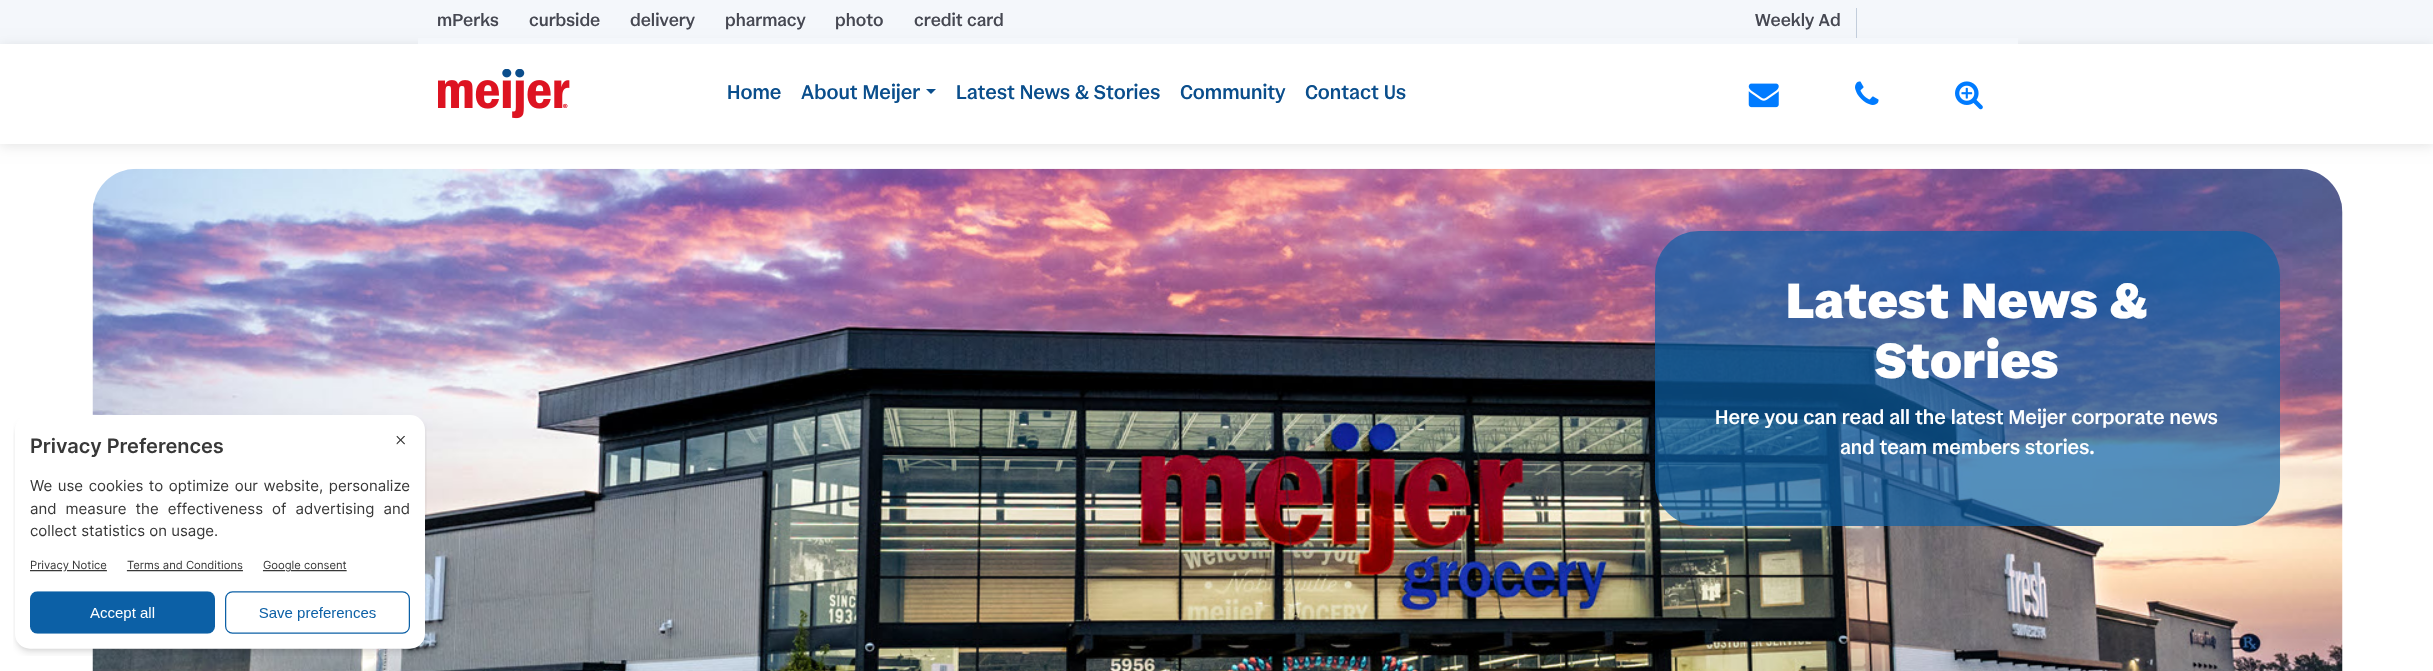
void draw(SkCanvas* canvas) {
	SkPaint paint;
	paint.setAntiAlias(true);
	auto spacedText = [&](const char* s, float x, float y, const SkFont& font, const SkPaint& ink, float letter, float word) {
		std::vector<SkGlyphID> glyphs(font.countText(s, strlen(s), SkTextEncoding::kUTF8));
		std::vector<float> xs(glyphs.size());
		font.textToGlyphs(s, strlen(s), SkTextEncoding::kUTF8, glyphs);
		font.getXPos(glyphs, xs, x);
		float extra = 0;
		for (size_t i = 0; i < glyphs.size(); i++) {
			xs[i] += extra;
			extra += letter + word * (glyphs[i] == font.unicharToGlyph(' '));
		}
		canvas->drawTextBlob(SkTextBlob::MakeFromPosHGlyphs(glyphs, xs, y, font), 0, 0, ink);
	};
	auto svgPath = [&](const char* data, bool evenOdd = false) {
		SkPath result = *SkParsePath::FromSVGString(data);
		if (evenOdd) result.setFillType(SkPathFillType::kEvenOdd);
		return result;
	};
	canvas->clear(0xffffffff);
	paint.setColor(0xfff4f7fb);
	canvas->drawRect(SkRect::MakeXYWH(0, 0, 2433, 44), paint);
	canvas->save();
	canvas->clipPath(svgPath("M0 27H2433V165H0ZM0 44H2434V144H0Z", true), true);
	paint.setColor(0x1a000000);
	paint.setMaskFilter(SkMaskFilter::MakeBlur(kNormal_SkBlurStyle, 6));
	canvas->drawRect(SkRect::MakeXYWH(0, 46, 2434, 100), paint);
	paint.setMaskFilter(nullptr);
	canvas->restore();
	paint.setColor(0xfff4f7fb);
	canvas->drawRect(SkRect::MakeXYWH(418, 38, 1600, 6), paint);
	SkFont f1(fontMgr->matchFamilyStyle("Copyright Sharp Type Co", SkFontStyle(500, SkFontStyle::kNormal_Width, SkFontStyle::kUpright_Slant)), 17.5);
	f1.setSubpixel(true);
	paint.setColor(0xff464852);
	canvas->drawString("mPerks", 437, 26, f1, paint);
	canvas->drawString("curbside", 529, 26, f1, paint);
	canvas->drawString("delivery", 630, 26, f1, paint);
	canvas->drawString("pharmacy", 725, 26, f1, paint);
	canvas->drawString("photo", 835, 26, f1, paint);
	canvas->drawString("credit card", 914, 26, f1, paint);
	paint.setColor(0xffc2cddb);
	canvas->drawRect(SkRect::MakeXYWH(1856, 8, 1, 30), paint);
	paint.setColor(0xff464852);
	canvas->drawString("Weekly Ad", 1755, 26, f1, paint);
	paint.setColor(0xffffffff);
	canvas->drawRect(SkRect::MakeXYWH(418, 143, 1600, 1), paint);
	canvas->drawImageRect(SkImages::DeferredFromEncodedData(SkData::MakeFromFileName("img1.png")), SkRect::MakeXYWH(438, 69, 132, 50), SkSamplingOptions());
	SkFont f2(fontMgr->matchFamilyStyle("Copyright Sharp Type Co", SkFontStyle(500, SkFontStyle::kNormal_Width, SkFontStyle::kUpright_Slant)), 20);
	f2.setSubpixel(true);
	paint.setColor(0xff0a4e8c);
	canvas->drawString("Home", 727, 99, f2, paint);
	canvas->drawString("About Meijer", 801, 99, f2, paint);
	canvas->drawPath(svgPath("M926 89H936L931 94Z"), paint);
	canvas->drawString("Latest News & Stories", 956, 99, f2, paint);
	canvas->drawString("Community", 1180, 99, f2, paint);
	canvas->drawString("Contact Us", 1305, 99, f2, paint);
	canvas->drawImageRect(SkImages::DeferredFromEncodedData(SkData::MakeFromFileName("img2.png")), SkRect::MakeXYWH(1748, 83, 31, 25), SkSamplingOptions());
	canvas->drawImageRect(SkImages::DeferredFromEncodedData(SkData::MakeFromFileName("img3.png")), SkRect::MakeXYWH(1855, 81, 24, 24), SkSamplingOptions());
	canvas->drawImageRect(SkImages::DeferredFromEncodedData(SkData::MakeFromFileName("img4.png")), SkRect::MakeXYWH(1955, 81, 28, 29), SkSamplingOptions());
	canvas->drawImageRect(SkImages::DeferredFromEncodedData(SkData::MakeFromFileName("img5.png")), SkRect::MakeXYWH(92, 168, 2251, 503), SkSamplingOptions());
	paint.setColor(0xb30c60a5);
	canvas->drawRoundRect(SkRect::MakeXYWH(1655, 231, 625, 295), 44, 44, paint);
	SkFont f3(fontMgr->matchFamilyStyle("Copyright Sharp Type Co", SkFontStyle(900, SkFontStyle::kNormal_Width, SkFontStyle::kUpright_Slant)), 50);
	f3.setSubpixel(true);
	paint.setColor(0xffffffff);
	spacedText("Latest News &", 1786, 318, f3, paint, -0.1, 0);
	spacedText("Stories", 1875, 378, f3, paint, -0.1, 0);
	canvas->drawString("Here you can read all the latest Meijer corporate news", 1715, 424, f2, paint);
	canvas->drawString("and team members stories.", 1840, 454, f2, paint);
	canvas->drawImageRect(SkImages::DeferredFromEncodedData(SkData::MakeFromFileName("img6.png")), SkRect::MakeXYWH(13, 415, 414, 241), SkSamplingOptions());
}
